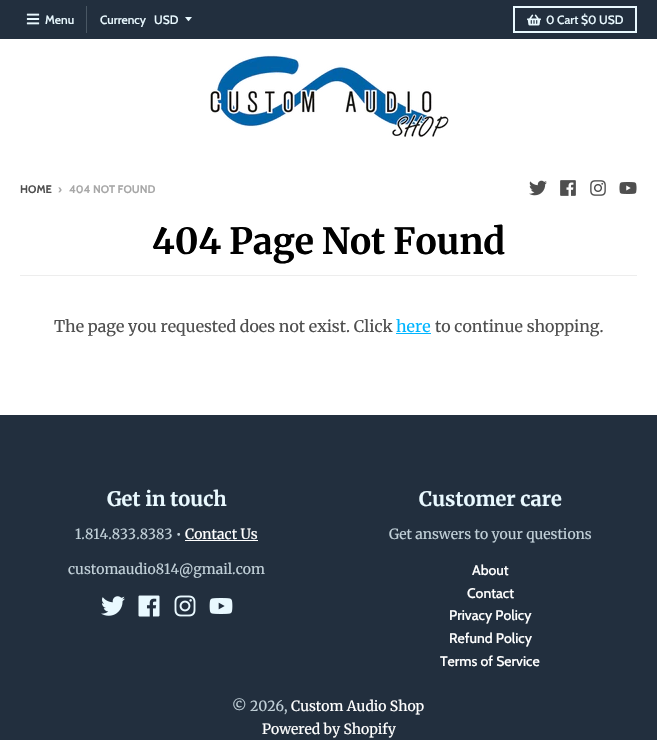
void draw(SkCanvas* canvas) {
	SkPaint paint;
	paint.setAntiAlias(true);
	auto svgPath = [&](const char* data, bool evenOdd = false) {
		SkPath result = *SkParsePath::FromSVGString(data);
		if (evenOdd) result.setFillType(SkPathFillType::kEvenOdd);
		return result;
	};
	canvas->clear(0xffffffff);
	paint.setColor(0xff222f3e);
	canvas->drawRect(SkRect::MakeXYWH(0, 0, 657, 39), paint);
	paint.setColor(0xff495764);
	canvas->drawRect(SkRect::MakeXYWH(86, 6, 1, 27), paint);
	canvas->drawImageRect(SkImages::DeferredFromEncodedData(SkData::MakeFromFileName("img1.png")), SkRect::MakeXYWH(26, 13, 14, 12), SkSamplingOptions());
	SkFont f1(fontMgr->matchFamilyStyle("Cabin", SkFontStyle(500, SkFontStyle::kNormal_Width, SkFontStyle::kUpright_Slant)), 12);
	f1.setSubpixel(true);
	paint.setColor(0xffe9f9ff);
	canvas->drawString("Menu", 45, 24, f1, paint);
	canvas->drawString("Currency", 100, 24, f1, paint);
	canvas->drawPath(svgPath("M185 17C189.5 22.5 187.5 22.5 192 17Z"), paint);
	canvas->drawString("USD", 154, 24, f1, paint);
	paint.setStroke(true);
	paint.setStrokeWidth(2);
	canvas->drawRect(SkRect::MakeXYWH(514, 7, 122, 25), paint);
	canvas->drawImageRect(SkImages::DeferredFromEncodedData(SkData::MakeFromFileName("img2.png")), SkRect::MakeXYWH(527, 14, 14, 12), SkSamplingOptions());
	paint.setStroke(false);
	canvas->drawString("0 Cart $0 USD", 546, 24, f1, paint);
	canvas->drawImageRect(SkImages::DeferredFromEncodedData(SkData::MakeFromFileName("img3.png")), SkRect::MakeXYWH(210, 55, 239, 82), SkSamplingOptions());
	SkFont f2(fontMgr->matchFamilyStyle("Cabin", SkFontStyle::Bold()), 11);
	f2.setSubpixel(true);
	paint.setColor(0xff4f4f4f);
	canvas->drawString("HOME", 20, 193, f2, paint);
	paint.setColor(0xffa7a7a7);
	canvas->drawString("›", 58, 193, f2, paint);
	canvas->drawString("404 NOT FOUND", 69, 193, f2, paint);
	canvas->drawImageRect(SkImages::DeferredFromEncodedData(SkData::MakeFromFileName("img4.png")), SkRect::MakeXYWH(529, 180, 18, 16), SkSamplingOptions());
	canvas->drawImageRect(SkImages::DeferredFromEncodedData(SkData::MakeFromFileName("img5.png")), SkRect::MakeXYWH(560, 180, 16, 16), SkSamplingOptions());
	canvas->drawImageRect(SkImages::DeferredFromEncodedData(SkData::MakeFromFileName("img6.png")), SkRect::MakeXYWH(590, 180, 16, 16), SkSamplingOptions());
	canvas->drawImageRect(SkImages::DeferredFromEncodedData(SkData::MakeFromFileName("img7.png")), SkRect::MakeXYWH(619, 182, 18, 12), SkSamplingOptions());
	paint.setColor(0xffededed);
	canvas->drawRect(SkRect::MakeXYWH(20, 275, 617, 1), paint);
	SkFont f3(fontMgr->matchFamilyStyle("Merriweather", SkFontStyle::Bold()), 36);
	f3.setSubpixel(true);
	paint.setColor(0xff000000);
	canvas->drawString("404 Page Not Found", 152, 254, f3, paint);
	SkFont f4(fontMgr->matchFamilyStyle("Merriweather", SkFontStyle::Normal()), 16);
	f4.setSubpixel(true);
	paint.setColor(0xff4f4f4f);
	canvas->drawString("The page you requested does not exist. Click", 54, 332, f4, paint);
	paint.setColor(0xff00b5ff);
	canvas->drawString("here", 396, 332, f4, paint);
	canvas->drawRect(SkRect::MakeXYWH(396, 333, 35, 1), paint);
	paint.setColor(0xff4f4f4f);
	canvas->drawString("to continue shopping.", 435, 332, f4, paint);
	paint.setColor(0xff222f3e);
	canvas->drawRect(SkRect::MakeXYWH(0, 415, 657, 325), paint);
	SkFont f5(fontMgr->matchFamilyStyle("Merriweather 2", SkFontStyle::Bold()), 20);
	f5.setSubpixel(true);
	paint.setColor(0xffe9f9ff);
	canvas->drawString("Get in touch", 107, 506, f5, paint);
	SkFont f6(fontMgr->matchFamilyStyle("Merriweather", SkFontStyle::Normal()), 14);
	f6.setSubpixel(true);
	paint.setColor(0xffc1d0d8);
	canvas->drawString("1.814.833.8383 •", 75, 539, f6, paint);
	paint.setColor(0xffffffff);
	canvas->drawString("Contact Us", 185, 539, f6, paint);
	canvas->drawRect(SkRect::MakeXYWH(185, 540, 73, 1), paint);
	paint.setColor(0xffc1d0d8);
	canvas->drawString("customaudio814@gmail.com", 68, 574, f6, paint);
	canvas->drawImageRect(SkImages::DeferredFromEncodedData(SkData::MakeFromFileName("img8.png")), SkRect::MakeXYWH(101, 596, 24, 20), SkSamplingOptions());
	canvas->drawImageRect(SkImages::DeferredFromEncodedData(SkData::MakeFromFileName("img9.png")), SkRect::MakeXYWH(138, 595, 22, 22), SkSamplingOptions());
	canvas->drawImageRect(SkImages::DeferredFromEncodedData(SkData::MakeFromFileName("img10.png")), SkRect::MakeXYWH(174, 595, 22, 22), SkSamplingOptions());
	canvas->drawImageRect(SkImages::DeferredFromEncodedData(SkData::MakeFromFileName("img11.png")), SkRect::MakeXYWH(209, 598, 24, 16), SkSamplingOptions());
	paint.setColor(0xffe9f9ff);
	canvas->drawString("Customer care", 419, 506, f5, paint);
	paint.setColor(0xffc1d0d8);
	canvas->drawString("Get answers to your questions", 389, 539, f6, paint);
	SkFont f7(fontMgr->matchFamilyStyle("Cabin", SkFontStyle(500, SkFontStyle::kNormal_Width, SkFontStyle::kUpright_Slant)), 14);
	f7.setSubpixel(true);
	paint.setColor(0xffffffff);
	canvas->drawString("About", 472, 575, f7, paint);
	canvas->drawString("Contact", 467, 598, f7, paint);
	canvas->drawString("Privacy Policy", 449, 620, f7, paint);
	canvas->drawString("Refund Policy", 449, 643, f7, paint);
	canvas->drawString("Terms of Service", 440, 666, f7, paint);
	paint.setColor(0xffc1d0d8);
	canvas->drawString("© 2026,", 232, 711, f6, paint);
	paint.setColor(0xffffffff);
	canvas->drawString("Custom Audio Shop", 291, 711, f6, paint);
	canvas->drawString("Powered by Shopify", 262, 734, f6, paint);
}
